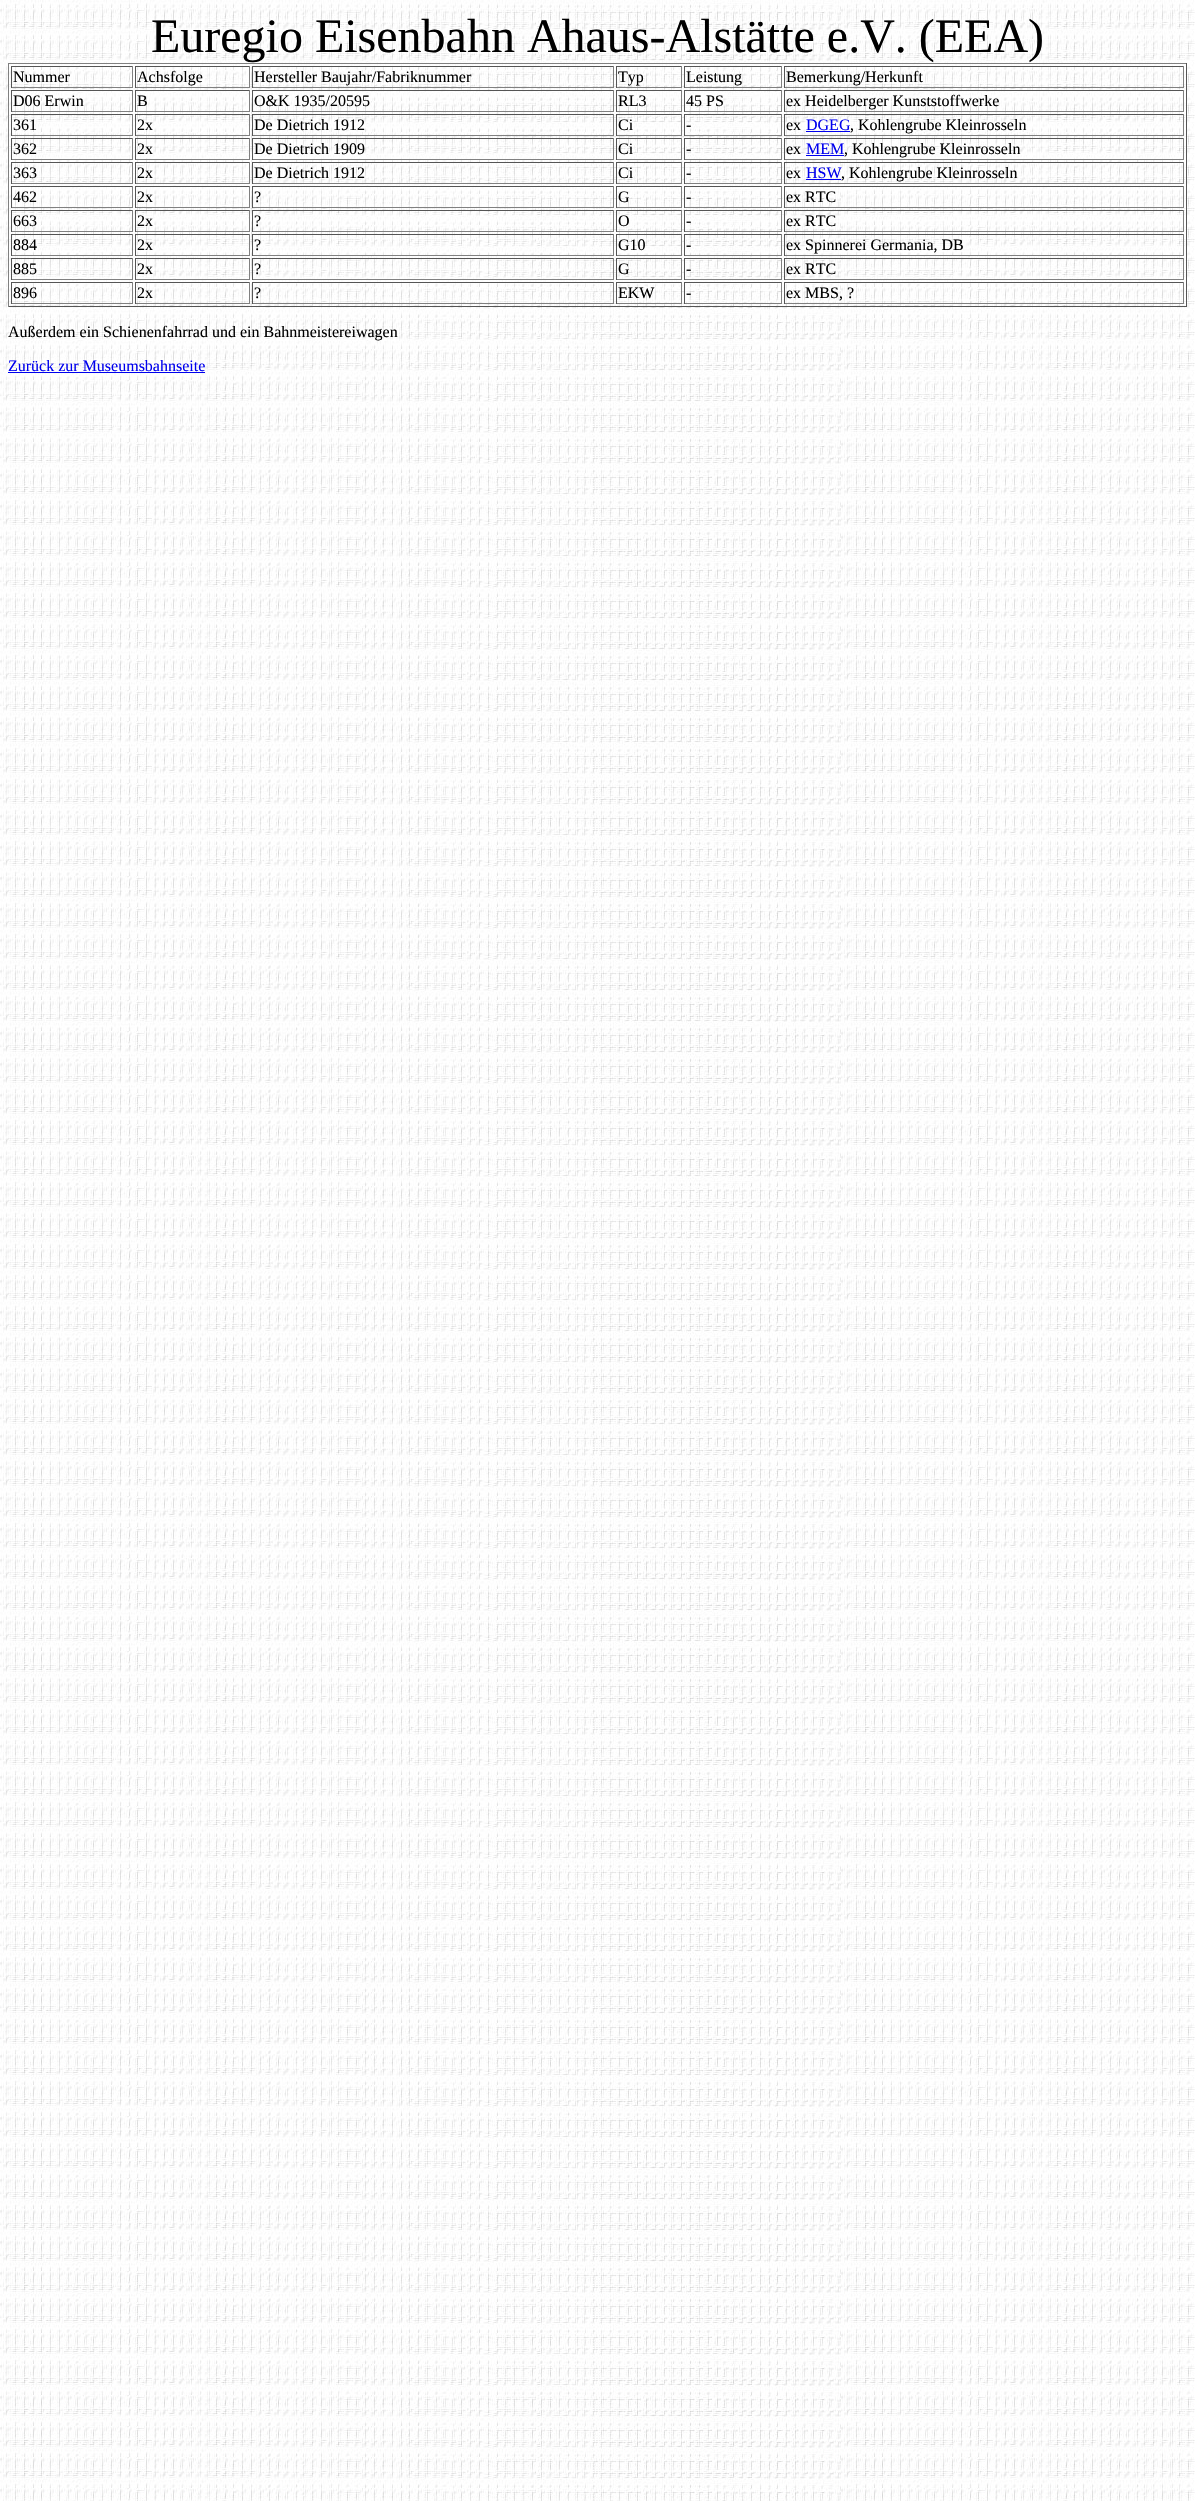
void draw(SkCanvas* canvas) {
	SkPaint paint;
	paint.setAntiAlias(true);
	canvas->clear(0xffffffff);
	canvas->drawImageRect(SkImages::DeferredFromEncodedData(SkData::MakeFromFileName("img1.png")), SkRect::MakeXYWH(0, 0, 1195, 2501), SkSamplingOptions());
	SkFont f1(fontMgr->matchFamilyStyle("Liberation Serif", SkFontStyle::Normal()), 48);
	f1.setSubpixel(true);
	paint.setColor(0xff000000);
	canvas->drawString("Euregio Eisenbahn Ahaus-Alstätte e.V. (EEA)", 151, 52, f1, paint);
	paint.setColor(0xff808080);
	canvas->drawRect(SkRect::MakeXYWH(8, 63, 1179, 1), paint);
	paint.setColor(0xff555555);
	canvas->drawRect(SkRect::MakeXYWH(1186, 63, 1, 244), paint);
	canvas->drawRect(SkRect::MakeXYWH(8, 306, 1179, 1), paint);
	paint.setColor(0xff808080);
	canvas->drawRect(SkRect::MakeXYWH(8, 63, 1, 244), paint);
	paint.setColor(0xff555555);
	canvas->drawRect(SkRect::MakeXYWH(11, 66, 122, 1), paint);
	paint.setColor(0xff808080);
	canvas->drawRect(SkRect::MakeXYWH(132, 66, 1, 22), paint);
	canvas->drawRect(SkRect::MakeXYWH(11, 87, 122, 1), paint);
	paint.setColor(0xff555555);
	canvas->drawRect(SkRect::MakeXYWH(11, 66, 1, 22), paint);
	SkFont f2(fontMgr->matchFamilyStyle("Liberation Serif", SkFontStyle::Normal()), 16);
	f2.setSubpixel(true);
	paint.setColor(0xff000000);
	canvas->drawString("Nummer", 13, 82, f2, paint);
	paint.setColor(0xff555555);
	canvas->drawRect(SkRect::MakeXYWH(135, 66, 115, 1), paint);
	paint.setColor(0xff808080);
	canvas->drawRect(SkRect::MakeXYWH(249, 66, 1, 22), paint);
	canvas->drawRect(SkRect::MakeXYWH(135, 87, 115, 1), paint);
	paint.setColor(0xff555555);
	canvas->drawRect(SkRect::MakeXYWH(135, 66, 1, 22), paint);
	paint.setColor(0xff000000);
	canvas->drawString("Achsfolge", 137, 82, f2, paint);
	paint.setColor(0xff555555);
	canvas->drawRect(SkRect::MakeXYWH(252, 66, 362, 1), paint);
	paint.setColor(0xff808080);
	canvas->drawRect(SkRect::MakeXYWH(613, 66, 1, 22), paint);
	canvas->drawRect(SkRect::MakeXYWH(252, 87, 362, 1), paint);
	paint.setColor(0xff555555);
	canvas->drawRect(SkRect::MakeXYWH(252, 66, 1, 22), paint);
	paint.setColor(0xff000000);
	canvas->drawString("Hersteller Baujahr/Fabriknummer", 254, 82, f2, paint);
	paint.setColor(0xff555555);
	canvas->drawRect(SkRect::MakeXYWH(616, 66, 66, 1), paint);
	paint.setColor(0xff808080);
	canvas->drawRect(SkRect::MakeXYWH(681, 66, 1, 22), paint);
	canvas->drawRect(SkRect::MakeXYWH(616, 87, 66, 1), paint);
	paint.setColor(0xff555555);
	canvas->drawRect(SkRect::MakeXYWH(616, 66, 1, 22), paint);
	paint.setColor(0xff000000);
	canvas->drawString("Typ", 618, 82, f2, paint);
	paint.setColor(0xff555555);
	canvas->drawRect(SkRect::MakeXYWH(684, 66, 98, 1), paint);
	paint.setColor(0xff808080);
	canvas->drawRect(SkRect::MakeXYWH(781, 66, 1, 22), paint);
	canvas->drawRect(SkRect::MakeXYWH(684, 87, 98, 1), paint);
	paint.setColor(0xff555555);
	canvas->drawRect(SkRect::MakeXYWH(684, 66, 1, 22), paint);
	paint.setColor(0xff000000);
	canvas->drawString("Leistung", 686, 82, f2, paint);
	paint.setColor(0xff555555);
	canvas->drawRect(SkRect::MakeXYWH(784, 66, 400, 1), paint);
	paint.setColor(0xff808080);
	canvas->drawRect(SkRect::MakeXYWH(1183, 66, 1, 22), paint);
	canvas->drawRect(SkRect::MakeXYWH(784, 87, 400, 1), paint);
	paint.setColor(0xff555555);
	canvas->drawRect(SkRect::MakeXYWH(784, 66, 1, 22), paint);
	paint.setColor(0xff000000);
	canvas->drawString("Bemerkung/Herkunft", 786, 82, f2, paint);
	paint.setColor(0xff555555);
	canvas->drawRect(SkRect::MakeXYWH(11, 90, 122, 1), paint);
	paint.setColor(0xff808080);
	canvas->drawRect(SkRect::MakeXYWH(132, 90, 1, 22), paint);
	canvas->drawRect(SkRect::MakeXYWH(11, 111, 122, 1), paint);
	paint.setColor(0xff555555);
	canvas->drawRect(SkRect::MakeXYWH(11, 90, 1, 22), paint);
	paint.setColor(0xff000000);
	canvas->drawString("D06 Erwin", 13, 106, f2, paint);
	paint.setColor(0xff555555);
	canvas->drawRect(SkRect::MakeXYWH(135, 90, 115, 1), paint);
	paint.setColor(0xff808080);
	canvas->drawRect(SkRect::MakeXYWH(249, 90, 1, 22), paint);
	canvas->drawRect(SkRect::MakeXYWH(135, 111, 115, 1), paint);
	paint.setColor(0xff555555);
	canvas->drawRect(SkRect::MakeXYWH(135, 90, 1, 22), paint);
	paint.setColor(0xff000000);
	canvas->drawString("B", 137, 106, f2, paint);
	paint.setColor(0xff555555);
	canvas->drawRect(SkRect::MakeXYWH(252, 90, 362, 1), paint);
	paint.setColor(0xff808080);
	canvas->drawRect(SkRect::MakeXYWH(613, 90, 1, 22), paint);
	canvas->drawRect(SkRect::MakeXYWH(252, 111, 362, 1), paint);
	paint.setColor(0xff555555);
	canvas->drawRect(SkRect::MakeXYWH(252, 90, 1, 22), paint);
	paint.setColor(0xff000000);
	canvas->drawString("O&K 1935/20595", 254, 106, f2, paint);
	paint.setColor(0xff555555);
	canvas->drawRect(SkRect::MakeXYWH(616, 90, 66, 1), paint);
	paint.setColor(0xff808080);
	canvas->drawRect(SkRect::MakeXYWH(681, 90, 1, 22), paint);
	canvas->drawRect(SkRect::MakeXYWH(616, 111, 66, 1), paint);
	paint.setColor(0xff555555);
	canvas->drawRect(SkRect::MakeXYWH(616, 90, 1, 22), paint);
	paint.setColor(0xff000000);
	canvas->drawString("RL3", 618, 106, f2, paint);
	paint.setColor(0xff555555);
	canvas->drawRect(SkRect::MakeXYWH(684, 90, 98, 1), paint);
	paint.setColor(0xff808080);
	canvas->drawRect(SkRect::MakeXYWH(781, 90, 1, 22), paint);
	canvas->drawRect(SkRect::MakeXYWH(684, 111, 98, 1), paint);
	paint.setColor(0xff555555);
	canvas->drawRect(SkRect::MakeXYWH(684, 90, 1, 22), paint);
	paint.setColor(0xff000000);
	canvas->drawString("45 PS", 686, 106, f2, paint);
	paint.setColor(0xff555555);
	canvas->drawRect(SkRect::MakeXYWH(784, 90, 400, 1), paint);
	paint.setColor(0xff808080);
	canvas->drawRect(SkRect::MakeXYWH(1183, 90, 1, 22), paint);
	canvas->drawRect(SkRect::MakeXYWH(784, 111, 400, 1), paint);
	paint.setColor(0xff555555);
	canvas->drawRect(SkRect::MakeXYWH(784, 90, 1, 22), paint);
	paint.setColor(0xff000000);
	canvas->drawString("ex Heidelberger Kunststoffwerke", 786, 106, f2, paint);
	paint.setColor(0xff555555);
	canvas->drawRect(SkRect::MakeXYWH(11, 114, 122, 1), paint);
	paint.setColor(0xff808080);
	canvas->drawRect(SkRect::MakeXYWH(132, 114, 1, 22), paint);
	canvas->drawRect(SkRect::MakeXYWH(11, 135, 122, 1), paint);
	paint.setColor(0xff555555);
	canvas->drawRect(SkRect::MakeXYWH(11, 114, 1, 22), paint);
	paint.setColor(0xff000000);
	canvas->drawString("361", 13, 130, f2, paint);
	paint.setColor(0xff555555);
	canvas->drawRect(SkRect::MakeXYWH(135, 114, 115, 1), paint);
	paint.setColor(0xff808080);
	canvas->drawRect(SkRect::MakeXYWH(249, 114, 1, 22), paint);
	canvas->drawRect(SkRect::MakeXYWH(135, 135, 115, 1), paint);
	paint.setColor(0xff555555);
	canvas->drawRect(SkRect::MakeXYWH(135, 114, 1, 22), paint);
	paint.setColor(0xff000000);
	canvas->drawString("2x", 137, 130, f2, paint);
	paint.setColor(0xff555555);
	canvas->drawRect(SkRect::MakeXYWH(252, 114, 362, 1), paint);
	paint.setColor(0xff808080);
	canvas->drawRect(SkRect::MakeXYWH(613, 114, 1, 22), paint);
	canvas->drawRect(SkRect::MakeXYWH(252, 135, 362, 1), paint);
	paint.setColor(0xff555555);
	canvas->drawRect(SkRect::MakeXYWH(252, 114, 1, 22), paint);
	paint.setColor(0xff000000);
	canvas->drawString("De Dietrich 1912", 254, 130, f2, paint);
	paint.setColor(0xff555555);
	canvas->drawRect(SkRect::MakeXYWH(616, 114, 66, 1), paint);
	paint.setColor(0xff808080);
	canvas->drawRect(SkRect::MakeXYWH(681, 114, 1, 22), paint);
	canvas->drawRect(SkRect::MakeXYWH(616, 135, 66, 1), paint);
	paint.setColor(0xff555555);
	canvas->drawRect(SkRect::MakeXYWH(616, 114, 1, 22), paint);
	paint.setColor(0xff000000);
	canvas->drawString("Ci", 618, 130, f2, paint);
	paint.setColor(0xff555555);
	canvas->drawRect(SkRect::MakeXYWH(684, 114, 98, 1), paint);
	paint.setColor(0xff808080);
	canvas->drawRect(SkRect::MakeXYWH(781, 114, 1, 22), paint);
	canvas->drawRect(SkRect::MakeXYWH(684, 135, 98, 1), paint);
	paint.setColor(0xff555555);
	canvas->drawRect(SkRect::MakeXYWH(684, 114, 1, 22), paint);
	paint.setColor(0xff000000);
	canvas->drawString("-", 686, 130, f2, paint);
	paint.setColor(0xff555555);
	canvas->drawRect(SkRect::MakeXYWH(784, 114, 400, 1), paint);
	paint.setColor(0xff808080);
	canvas->drawRect(SkRect::MakeXYWH(1183, 114, 1, 22), paint);
	canvas->drawRect(SkRect::MakeXYWH(784, 135, 400, 1), paint);
	paint.setColor(0xff555555);
	canvas->drawRect(SkRect::MakeXYWH(784, 114, 1, 22), paint);
	paint.setColor(0xff000000);
	canvas->drawString("ex", 786, 130, f2, paint);
	paint.setColor(0xff0000ee);
	canvas->drawString("DGEG", 806, 130, f2, paint);
	paint.setColor(0xff000000);
	canvas->drawString(", Kohlengrube Kleinrosseln", 850, 130, f2, paint);
	paint.setColor(0xff0000ee);
	canvas->drawRect(SkRect::MakeXYWH(806, 131, 44, 1), paint);
	paint.setColor(0xff555555);
	canvas->drawRect(SkRect::MakeXYWH(11, 138, 122, 1), paint);
	paint.setColor(0xff808080);
	canvas->drawRect(SkRect::MakeXYWH(132, 138, 1, 22), paint);
	canvas->drawRect(SkRect::MakeXYWH(11, 159, 122, 1), paint);
	paint.setColor(0xff555555);
	canvas->drawRect(SkRect::MakeXYWH(11, 138, 1, 22), paint);
	paint.setColor(0xff000000);
	canvas->drawString("362", 13, 154, f2, paint);
	paint.setColor(0xff555555);
	canvas->drawRect(SkRect::MakeXYWH(135, 138, 115, 1), paint);
	paint.setColor(0xff808080);
	canvas->drawRect(SkRect::MakeXYWH(249, 138, 1, 22), paint);
	canvas->drawRect(SkRect::MakeXYWH(135, 159, 115, 1), paint);
	paint.setColor(0xff555555);
	canvas->drawRect(SkRect::MakeXYWH(135, 138, 1, 22), paint);
	paint.setColor(0xff000000);
	canvas->drawString("2x", 137, 154, f2, paint);
	paint.setColor(0xff555555);
	canvas->drawRect(SkRect::MakeXYWH(252, 138, 362, 1), paint);
	paint.setColor(0xff808080);
	canvas->drawRect(SkRect::MakeXYWH(613, 138, 1, 22), paint);
	canvas->drawRect(SkRect::MakeXYWH(252, 159, 362, 1), paint);
	paint.setColor(0xff555555);
	canvas->drawRect(SkRect::MakeXYWH(252, 138, 1, 22), paint);
	paint.setColor(0xff000000);
	canvas->drawString("De Dietrich 1909", 254, 154, f2, paint);
	paint.setColor(0xff555555);
	canvas->drawRect(SkRect::MakeXYWH(616, 138, 66, 1), paint);
	paint.setColor(0xff808080);
	canvas->drawRect(SkRect::MakeXYWH(681, 138, 1, 22), paint);
	canvas->drawRect(SkRect::MakeXYWH(616, 159, 66, 1), paint);
	paint.setColor(0xff555555);
	canvas->drawRect(SkRect::MakeXYWH(616, 138, 1, 22), paint);
	paint.setColor(0xff000000);
	canvas->drawString("Ci", 618, 154, f2, paint);
	paint.setColor(0xff555555);
	canvas->drawRect(SkRect::MakeXYWH(684, 138, 98, 1), paint);
	paint.setColor(0xff808080);
	canvas->drawRect(SkRect::MakeXYWH(781, 138, 1, 22), paint);
	canvas->drawRect(SkRect::MakeXYWH(684, 159, 98, 1), paint);
	paint.setColor(0xff555555);
	canvas->drawRect(SkRect::MakeXYWH(684, 138, 1, 22), paint);
	paint.setColor(0xff000000);
	canvas->drawString("-", 686, 154, f2, paint);
	paint.setColor(0xff555555);
	canvas->drawRect(SkRect::MakeXYWH(784, 138, 400, 1), paint);
	paint.setColor(0xff808080);
	canvas->drawRect(SkRect::MakeXYWH(1183, 138, 1, 22), paint);
	canvas->drawRect(SkRect::MakeXYWH(784, 159, 400, 1), paint);
	paint.setColor(0xff555555);
	canvas->drawRect(SkRect::MakeXYWH(784, 138, 1, 22), paint);
	paint.setColor(0xff000000);
	canvas->drawString("ex", 786, 154, f2, paint);
	paint.setColor(0xff0000ee);
	canvas->drawString("MEM", 806, 154, f2, paint);
	paint.setColor(0xff000000);
	canvas->drawString(", Kohlengrube Kleinrosseln", 844, 154, f2, paint);
	paint.setColor(0xff0000ee);
	canvas->drawRect(SkRect::MakeXYWH(806, 155, 38, 1), paint);
	paint.setColor(0xff555555);
	canvas->drawRect(SkRect::MakeXYWH(11, 162, 122, 1), paint);
	paint.setColor(0xff808080);
	canvas->drawRect(SkRect::MakeXYWH(132, 162, 1, 22), paint);
	canvas->drawRect(SkRect::MakeXYWH(11, 183, 122, 1), paint);
	paint.setColor(0xff555555);
	canvas->drawRect(SkRect::MakeXYWH(11, 162, 1, 22), paint);
	paint.setColor(0xff000000);
	canvas->drawString("363", 13, 178, f2, paint);
	paint.setColor(0xff555555);
	canvas->drawRect(SkRect::MakeXYWH(135, 162, 115, 1), paint);
	paint.setColor(0xff808080);
	canvas->drawRect(SkRect::MakeXYWH(249, 162, 1, 22), paint);
	canvas->drawRect(SkRect::MakeXYWH(135, 183, 115, 1), paint);
	paint.setColor(0xff555555);
	canvas->drawRect(SkRect::MakeXYWH(135, 162, 1, 22), paint);
	paint.setColor(0xff000000);
	canvas->drawString("2x", 137, 178, f2, paint);
	paint.setColor(0xff555555);
	canvas->drawRect(SkRect::MakeXYWH(252, 162, 362, 1), paint);
	paint.setColor(0xff808080);
	canvas->drawRect(SkRect::MakeXYWH(613, 162, 1, 22), paint);
	canvas->drawRect(SkRect::MakeXYWH(252, 183, 362, 1), paint);
	paint.setColor(0xff555555);
	canvas->drawRect(SkRect::MakeXYWH(252, 162, 1, 22), paint);
	paint.setColor(0xff000000);
	canvas->drawString("De Dietrich 1912", 254, 178, f2, paint);
	paint.setColor(0xff555555);
	canvas->drawRect(SkRect::MakeXYWH(616, 162, 66, 1), paint);
	paint.setColor(0xff808080);
	canvas->drawRect(SkRect::MakeXYWH(681, 162, 1, 22), paint);
	canvas->drawRect(SkRect::MakeXYWH(616, 183, 66, 1), paint);
	paint.setColor(0xff555555);
	canvas->drawRect(SkRect::MakeXYWH(616, 162, 1, 22), paint);
	paint.setColor(0xff000000);
	canvas->drawString("Ci", 618, 178, f2, paint);
	paint.setColor(0xff555555);
	canvas->drawRect(SkRect::MakeXYWH(684, 162, 98, 1), paint);
	paint.setColor(0xff808080);
	canvas->drawRect(SkRect::MakeXYWH(781, 162, 1, 22), paint);
	canvas->drawRect(SkRect::MakeXYWH(684, 183, 98, 1), paint);
	paint.setColor(0xff555555);
	canvas->drawRect(SkRect::MakeXYWH(684, 162, 1, 22), paint);
	paint.setColor(0xff000000);
	canvas->drawString("-", 686, 178, f2, paint);
	paint.setColor(0xff555555);
	canvas->drawRect(SkRect::MakeXYWH(784, 162, 400, 1), paint);
	paint.setColor(0xff808080);
	canvas->drawRect(SkRect::MakeXYWH(1183, 162, 1, 22), paint);
	canvas->drawRect(SkRect::MakeXYWH(784, 183, 400, 1), paint);
	paint.setColor(0xff555555);
	canvas->drawRect(SkRect::MakeXYWH(784, 162, 1, 22), paint);
	paint.setColor(0xff000000);
	canvas->drawString("ex", 786, 178, f2, paint);
	paint.setColor(0xff0000ee);
	canvas->drawString("HSW", 806, 178, f2, paint);
	paint.setColor(0xff000000);
	canvas->drawString(", Kohlengrube Kleinrosseln", 841, 178, f2, paint);
	paint.setColor(0xff0000ee);
	canvas->drawRect(SkRect::MakeXYWH(806, 179, 35, 1), paint);
	paint.setColor(0xff555555);
	canvas->drawRect(SkRect::MakeXYWH(11, 186, 122, 1), paint);
	paint.setColor(0xff808080);
	canvas->drawRect(SkRect::MakeXYWH(132, 186, 1, 22), paint);
	canvas->drawRect(SkRect::MakeXYWH(11, 207, 122, 1), paint);
	paint.setColor(0xff555555);
	canvas->drawRect(SkRect::MakeXYWH(11, 186, 1, 22), paint);
	paint.setColor(0xff000000);
	canvas->drawString("462", 13, 202, f2, paint);
	paint.setColor(0xff555555);
	canvas->drawRect(SkRect::MakeXYWH(135, 186, 115, 1), paint);
	paint.setColor(0xff808080);
	canvas->drawRect(SkRect::MakeXYWH(249, 186, 1, 22), paint);
	canvas->drawRect(SkRect::MakeXYWH(135, 207, 115, 1), paint);
	paint.setColor(0xff555555);
	canvas->drawRect(SkRect::MakeXYWH(135, 186, 1, 22), paint);
	paint.setColor(0xff000000);
	canvas->drawString("2x", 137, 202, f2, paint);
	paint.setColor(0xff555555);
	canvas->drawRect(SkRect::MakeXYWH(252, 186, 362, 1), paint);
	paint.setColor(0xff808080);
	canvas->drawRect(SkRect::MakeXYWH(613, 186, 1, 22), paint);
	canvas->drawRect(SkRect::MakeXYWH(252, 207, 362, 1), paint);
	paint.setColor(0xff555555);
	canvas->drawRect(SkRect::MakeXYWH(252, 186, 1, 22), paint);
	paint.setColor(0xff000000);
	canvas->drawString("?", 254, 202, f2, paint);
	paint.setColor(0xff555555);
	canvas->drawRect(SkRect::MakeXYWH(616, 186, 66, 1), paint);
	paint.setColor(0xff808080);
	canvas->drawRect(SkRect::MakeXYWH(681, 186, 1, 22), paint);
	canvas->drawRect(SkRect::MakeXYWH(616, 207, 66, 1), paint);
	paint.setColor(0xff555555);
	canvas->drawRect(SkRect::MakeXYWH(616, 186, 1, 22), paint);
	paint.setColor(0xff000000);
	canvas->drawString("G", 618, 202, f2, paint);
	paint.setColor(0xff555555);
	canvas->drawRect(SkRect::MakeXYWH(684, 186, 98, 1), paint);
	paint.setColor(0xff808080);
	canvas->drawRect(SkRect::MakeXYWH(781, 186, 1, 22), paint);
	canvas->drawRect(SkRect::MakeXYWH(684, 207, 98, 1), paint);
	paint.setColor(0xff555555);
	canvas->drawRect(SkRect::MakeXYWH(684, 186, 1, 22), paint);
	paint.setColor(0xff000000);
	canvas->drawString("-", 686, 202, f2, paint);
	paint.setColor(0xff555555);
	canvas->drawRect(SkRect::MakeXYWH(784, 186, 400, 1), paint);
	paint.setColor(0xff808080);
	canvas->drawRect(SkRect::MakeXYWH(1183, 186, 1, 22), paint);
	canvas->drawRect(SkRect::MakeXYWH(784, 207, 400, 1), paint);
	paint.setColor(0xff555555);
	canvas->drawRect(SkRect::MakeXYWH(784, 186, 1, 22), paint);
	paint.setColor(0xff000000);
	canvas->drawString("ex RTC", 786, 202, f2, paint);
	paint.setColor(0xff555555);
	canvas->drawRect(SkRect::MakeXYWH(11, 210, 122, 1), paint);
	paint.setColor(0xff808080);
	canvas->drawRect(SkRect::MakeXYWH(132, 210, 1, 22), paint);
	canvas->drawRect(SkRect::MakeXYWH(11, 231, 122, 1), paint);
	paint.setColor(0xff555555);
	canvas->drawRect(SkRect::MakeXYWH(11, 210, 1, 22), paint);
	paint.setColor(0xff000000);
	canvas->drawString("663", 13, 226, f2, paint);
	paint.setColor(0xff555555);
	canvas->drawRect(SkRect::MakeXYWH(135, 210, 115, 1), paint);
	paint.setColor(0xff808080);
	canvas->drawRect(SkRect::MakeXYWH(249, 210, 1, 22), paint);
	canvas->drawRect(SkRect::MakeXYWH(135, 231, 115, 1), paint);
	paint.setColor(0xff555555);
	canvas->drawRect(SkRect::MakeXYWH(135, 210, 1, 22), paint);
	paint.setColor(0xff000000);
	canvas->drawString("2x", 137, 226, f2, paint);
	paint.setColor(0xff555555);
	canvas->drawRect(SkRect::MakeXYWH(252, 210, 362, 1), paint);
	paint.setColor(0xff808080);
	canvas->drawRect(SkRect::MakeXYWH(613, 210, 1, 22), paint);
	canvas->drawRect(SkRect::MakeXYWH(252, 231, 362, 1), paint);
	paint.setColor(0xff555555);
	canvas->drawRect(SkRect::MakeXYWH(252, 210, 1, 22), paint);
	paint.setColor(0xff000000);
	canvas->drawString("?", 254, 226, f2, paint);
	paint.setColor(0xff555555);
	canvas->drawRect(SkRect::MakeXYWH(616, 210, 66, 1), paint);
	paint.setColor(0xff808080);
	canvas->drawRect(SkRect::MakeXYWH(681, 210, 1, 22), paint);
	canvas->drawRect(SkRect::MakeXYWH(616, 231, 66, 1), paint);
	paint.setColor(0xff555555);
	canvas->drawRect(SkRect::MakeXYWH(616, 210, 1, 22), paint);
	paint.setColor(0xff000000);
	canvas->drawString("O", 618, 226, f2, paint);
	paint.setColor(0xff555555);
	canvas->drawRect(SkRect::MakeXYWH(684, 210, 98, 1), paint);
	paint.setColor(0xff808080);
	canvas->drawRect(SkRect::MakeXYWH(781, 210, 1, 22), paint);
	canvas->drawRect(SkRect::MakeXYWH(684, 231, 98, 1), paint);
	paint.setColor(0xff555555);
	canvas->drawRect(SkRect::MakeXYWH(684, 210, 1, 22), paint);
	paint.setColor(0xff000000);
	canvas->drawString("-", 686, 226, f2, paint);
	paint.setColor(0xff555555);
	canvas->drawRect(SkRect::MakeXYWH(784, 210, 400, 1), paint);
	paint.setColor(0xff808080);
	canvas->drawRect(SkRect::MakeXYWH(1183, 210, 1, 22), paint);
	canvas->drawRect(SkRect::MakeXYWH(784, 231, 400, 1), paint);
	paint.setColor(0xff555555);
	canvas->drawRect(SkRect::MakeXYWH(784, 210, 1, 22), paint);
	paint.setColor(0xff000000);
	canvas->drawString("ex RTC", 786, 226, f2, paint);
	paint.setColor(0xff555555);
	canvas->drawRect(SkRect::MakeXYWH(11, 234, 122, 1), paint);
	paint.setColor(0xff808080);
	canvas->drawRect(SkRect::MakeXYWH(132, 234, 1, 22), paint);
	canvas->drawRect(SkRect::MakeXYWH(11, 255, 122, 1), paint);
	paint.setColor(0xff555555);
	canvas->drawRect(SkRect::MakeXYWH(11, 234, 1, 22), paint);
	paint.setColor(0xff000000);
	canvas->drawString("884", 13, 250, f2, paint);
	paint.setColor(0xff555555);
	canvas->drawRect(SkRect::MakeXYWH(135, 234, 115, 1), paint);
	paint.setColor(0xff808080);
	canvas->drawRect(SkRect::MakeXYWH(249, 234, 1, 22), paint);
	canvas->drawRect(SkRect::MakeXYWH(135, 255, 115, 1), paint);
	paint.setColor(0xff555555);
	canvas->drawRect(SkRect::MakeXYWH(135, 234, 1, 22), paint);
	paint.setColor(0xff000000);
	canvas->drawString("2x", 137, 250, f2, paint);
	paint.setColor(0xff555555);
	canvas->drawRect(SkRect::MakeXYWH(252, 234, 362, 1), paint);
	paint.setColor(0xff808080);
	canvas->drawRect(SkRect::MakeXYWH(613, 234, 1, 22), paint);
	canvas->drawRect(SkRect::MakeXYWH(252, 255, 362, 1), paint);
	paint.setColor(0xff555555);
	canvas->drawRect(SkRect::MakeXYWH(252, 234, 1, 22), paint);
	paint.setColor(0xff000000);
	canvas->drawString("?", 254, 250, f2, paint);
	paint.setColor(0xff555555);
	canvas->drawRect(SkRect::MakeXYWH(616, 234, 66, 1), paint);
	paint.setColor(0xff808080);
	canvas->drawRect(SkRect::MakeXYWH(681, 234, 1, 22), paint);
	canvas->drawRect(SkRect::MakeXYWH(616, 255, 66, 1), paint);
	paint.setColor(0xff555555);
	canvas->drawRect(SkRect::MakeXYWH(616, 234, 1, 22), paint);
	paint.setColor(0xff000000);
	canvas->drawString("G10", 618, 250, f2, paint);
	paint.setColor(0xff555555);
	canvas->drawRect(SkRect::MakeXYWH(684, 234, 98, 1), paint);
	paint.setColor(0xff808080);
	canvas->drawRect(SkRect::MakeXYWH(781, 234, 1, 22), paint);
	canvas->drawRect(SkRect::MakeXYWH(684, 255, 98, 1), paint);
	paint.setColor(0xff555555);
	canvas->drawRect(SkRect::MakeXYWH(684, 234, 1, 22), paint);
	paint.setColor(0xff000000);
	canvas->drawString("-", 686, 250, f2, paint);
	paint.setColor(0xff555555);
	canvas->drawRect(SkRect::MakeXYWH(784, 234, 400, 1), paint);
	paint.setColor(0xff808080);
	canvas->drawRect(SkRect::MakeXYWH(1183, 234, 1, 22), paint);
	canvas->drawRect(SkRect::MakeXYWH(784, 255, 400, 1), paint);
	paint.setColor(0xff555555);
	canvas->drawRect(SkRect::MakeXYWH(784, 234, 1, 22), paint);
	paint.setColor(0xff000000);
	canvas->drawString("ex Spinnerei Germania, DB", 786, 250, f2, paint);
	paint.setColor(0xff555555);
	canvas->drawRect(SkRect::MakeXYWH(11, 258, 122, 1), paint);
	paint.setColor(0xff808080);
	canvas->drawRect(SkRect::MakeXYWH(132, 258, 1, 22), paint);
	canvas->drawRect(SkRect::MakeXYWH(11, 279, 122, 1), paint);
	paint.setColor(0xff555555);
	canvas->drawRect(SkRect::MakeXYWH(11, 258, 1, 22), paint);
	paint.setColor(0xff000000);
	canvas->drawString("885", 13, 274, f2, paint);
	paint.setColor(0xff555555);
	canvas->drawRect(SkRect::MakeXYWH(135, 258, 115, 1), paint);
	paint.setColor(0xff808080);
	canvas->drawRect(SkRect::MakeXYWH(249, 258, 1, 22), paint);
	canvas->drawRect(SkRect::MakeXYWH(135, 279, 115, 1), paint);
	paint.setColor(0xff555555);
	canvas->drawRect(SkRect::MakeXYWH(135, 258, 1, 22), paint);
	paint.setColor(0xff000000);
	canvas->drawString("2x", 137, 274, f2, paint);
	paint.setColor(0xff555555);
	canvas->drawRect(SkRect::MakeXYWH(252, 258, 362, 1), paint);
	paint.setColor(0xff808080);
	canvas->drawRect(SkRect::MakeXYWH(613, 258, 1, 22), paint);
	canvas->drawRect(SkRect::MakeXYWH(252, 279, 362, 1), paint);
	paint.setColor(0xff555555);
	canvas->drawRect(SkRect::MakeXYWH(252, 258, 1, 22), paint);
	paint.setColor(0xff000000);
	canvas->drawString("?", 254, 274, f2, paint);
	paint.setColor(0xff555555);
	canvas->drawRect(SkRect::MakeXYWH(616, 258, 66, 1), paint);
	paint.setColor(0xff808080);
	canvas->drawRect(SkRect::MakeXYWH(681, 258, 1, 22), paint);
	canvas->drawRect(SkRect::MakeXYWH(616, 279, 66, 1), paint);
	paint.setColor(0xff555555);
	canvas->drawRect(SkRect::MakeXYWH(616, 258, 1, 22), paint);
	paint.setColor(0xff000000);
	canvas->drawString("G", 618, 274, f2, paint);
	paint.setColor(0xff555555);
	canvas->drawRect(SkRect::MakeXYWH(684, 258, 98, 1), paint);
	paint.setColor(0xff808080);
	canvas->drawRect(SkRect::MakeXYWH(781, 258, 1, 22), paint);
	canvas->drawRect(SkRect::MakeXYWH(684, 279, 98, 1), paint);
	paint.setColor(0xff555555);
	canvas->drawRect(SkRect::MakeXYWH(684, 258, 1, 22), paint);
	paint.setColor(0xff000000);
	canvas->drawString("-", 686, 274, f2, paint);
	paint.setColor(0xff555555);
	canvas->drawRect(SkRect::MakeXYWH(784, 258, 400, 1), paint);
	paint.setColor(0xff808080);
	canvas->drawRect(SkRect::MakeXYWH(1183, 258, 1, 22), paint);
	canvas->drawRect(SkRect::MakeXYWH(784, 279, 400, 1), paint);
	paint.setColor(0xff555555);
	canvas->drawRect(SkRect::MakeXYWH(784, 258, 1, 22), paint);
	paint.setColor(0xff000000);
	canvas->drawString("ex RTC", 786, 274, f2, paint);
	paint.setColor(0xff555555);
	canvas->drawRect(SkRect::MakeXYWH(11, 282, 122, 1), paint);
	paint.setColor(0xff808080);
	canvas->drawRect(SkRect::MakeXYWH(132, 282, 1, 22), paint);
	canvas->drawRect(SkRect::MakeXYWH(11, 303, 122, 1), paint);
	paint.setColor(0xff555555);
	canvas->drawRect(SkRect::MakeXYWH(11, 282, 1, 22), paint);
	paint.setColor(0xff000000);
	canvas->drawString("896", 13, 298, f2, paint);
	paint.setColor(0xff555555);
	canvas->drawRect(SkRect::MakeXYWH(135, 282, 115, 1), paint);
	paint.setColor(0xff808080);
	canvas->drawRect(SkRect::MakeXYWH(249, 282, 1, 22), paint);
	canvas->drawRect(SkRect::MakeXYWH(135, 303, 115, 1), paint);
	paint.setColor(0xff555555);
	canvas->drawRect(SkRect::MakeXYWH(135, 282, 1, 22), paint);
	paint.setColor(0xff000000);
	canvas->drawString("2x", 137, 298, f2, paint);
	paint.setColor(0xff555555);
	canvas->drawRect(SkRect::MakeXYWH(252, 282, 362, 1), paint);
	paint.setColor(0xff808080);
	canvas->drawRect(SkRect::MakeXYWH(613, 282, 1, 22), paint);
	canvas->drawRect(SkRect::MakeXYWH(252, 303, 362, 1), paint);
	paint.setColor(0xff555555);
	canvas->drawRect(SkRect::MakeXYWH(252, 282, 1, 22), paint);
	paint.setColor(0xff000000);
	canvas->drawString("?", 254, 298, f2, paint);
	paint.setColor(0xff555555);
	canvas->drawRect(SkRect::MakeXYWH(616, 282, 66, 1), paint);
	paint.setColor(0xff808080);
	canvas->drawRect(SkRect::MakeXYWH(681, 282, 1, 22), paint);
	canvas->drawRect(SkRect::MakeXYWH(616, 303, 66, 1), paint);
	paint.setColor(0xff555555);
	canvas->drawRect(SkRect::MakeXYWH(616, 282, 1, 22), paint);
	paint.setColor(0xff000000);
	canvas->drawString("EKW", 618, 298, f2, paint);
	paint.setColor(0xff555555);
	canvas->drawRect(SkRect::MakeXYWH(684, 282, 98, 1), paint);
	paint.setColor(0xff808080);
	canvas->drawRect(SkRect::MakeXYWH(781, 282, 1, 22), paint);
	canvas->drawRect(SkRect::MakeXYWH(684, 303, 98, 1), paint);
	paint.setColor(0xff555555);
	canvas->drawRect(SkRect::MakeXYWH(684, 282, 1, 22), paint);
	paint.setColor(0xff000000);
	canvas->drawString("-", 686, 298, f2, paint);
	paint.setColor(0xff555555);
	canvas->drawRect(SkRect::MakeXYWH(784, 282, 400, 1), paint);
	paint.setColor(0xff808080);
	canvas->drawRect(SkRect::MakeXYWH(1183, 282, 1, 22), paint);
	canvas->drawRect(SkRect::MakeXYWH(784, 303, 400, 1), paint);
	paint.setColor(0xff555555);
	canvas->drawRect(SkRect::MakeXYWH(784, 282, 1, 22), paint);
	paint.setColor(0xff000000);
	canvas->drawString("ex MBS, ?", 786, 298, f2, paint);
	canvas->drawString("Außerdem ein Schienenfahrrad und ein Bahnmeistereiwagen", 8, 337, f2, paint);
	paint.setColor(0xff0000ee);
	canvas->drawString("Zurück zur Museumsbahnseite", 8, 371, f2, paint);
	canvas->drawRect(SkRect::MakeXYWH(8, 372, 197, 1), paint);
}
